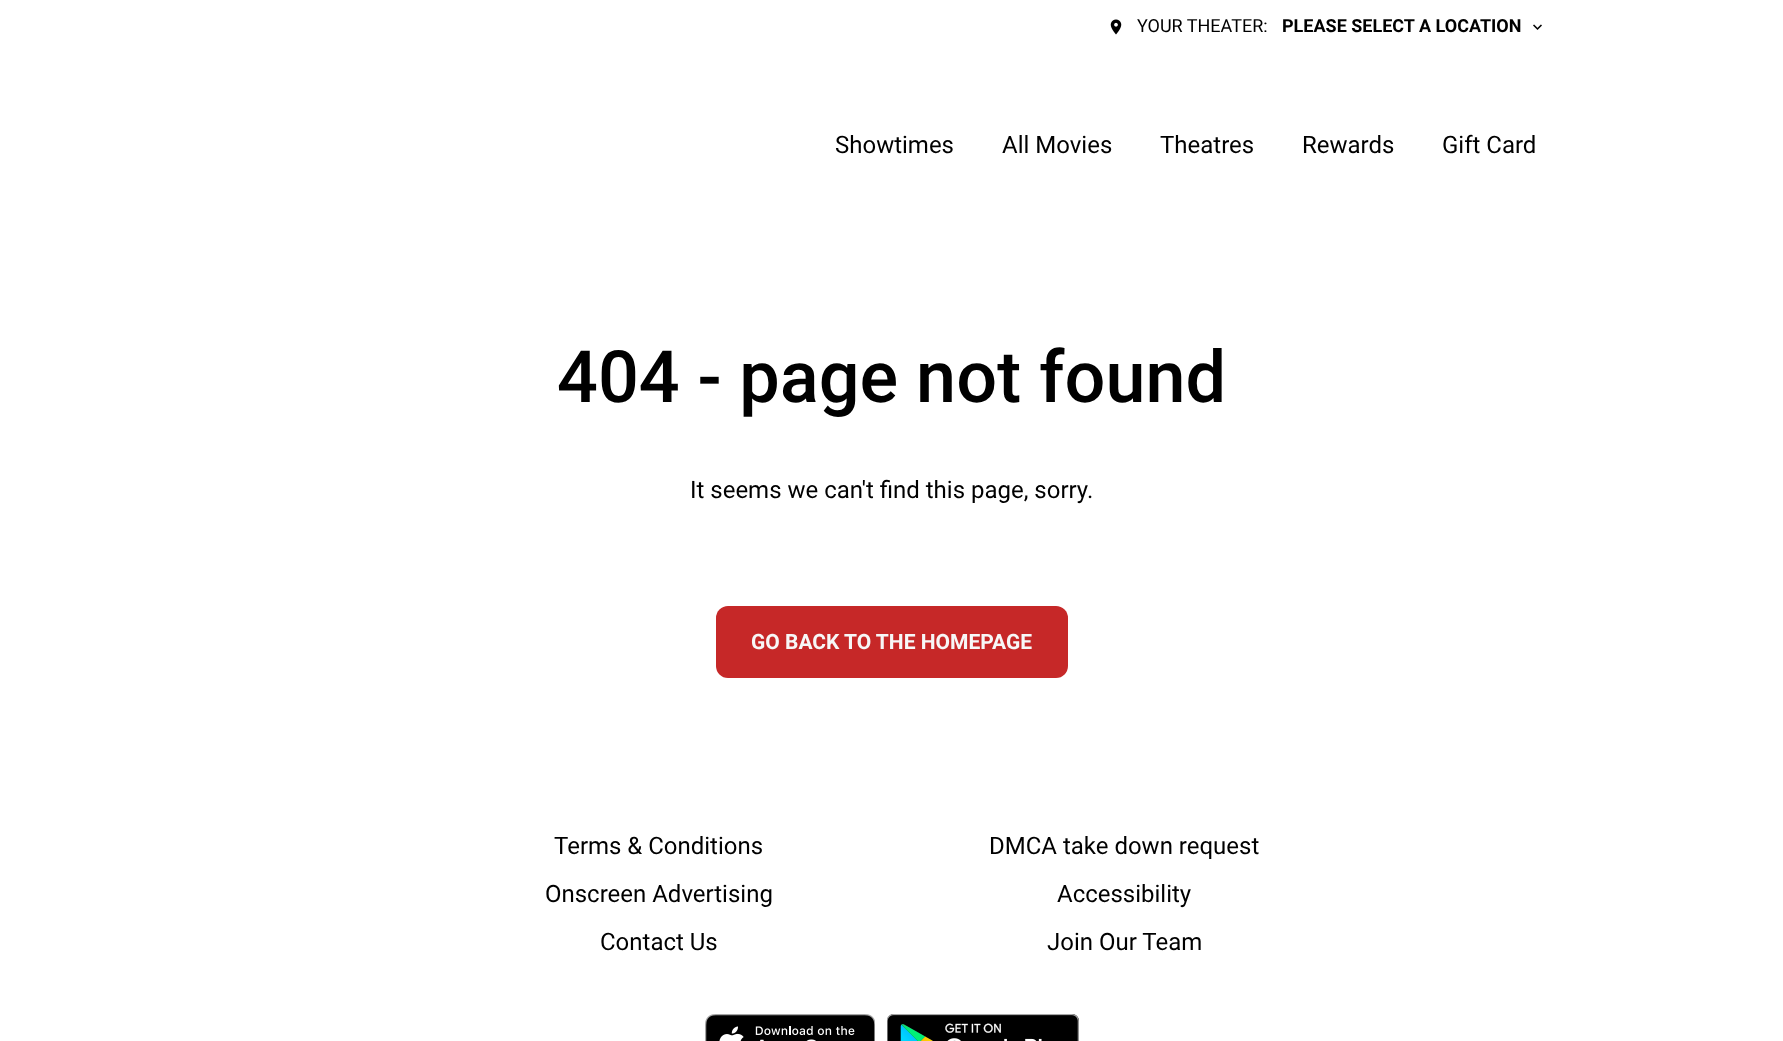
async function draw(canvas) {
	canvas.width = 1783;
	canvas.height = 1041;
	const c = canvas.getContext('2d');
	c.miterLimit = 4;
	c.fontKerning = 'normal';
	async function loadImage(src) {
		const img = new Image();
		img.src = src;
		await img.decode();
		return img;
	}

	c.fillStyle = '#fff';
	c.fillRect(0, 0, 1783, 1041);
	c.drawImage(await loadImage('img1.png'), 1110, 19, 12, 16);
	c.font = '18px Roboto';
	c.fillStyle = '#000';
	c.fillText('YOUR THEATER:', 1137, 32);
	c.font = 'bold 18px Roboto';
	c.fillText('PLEASE SELECT A LOCATION', 1282, 32);
	c.drawImage(await loadImage('img2.png'), 1533, 24, 9, 6);
	c.font = '24px Roboto';
	for (const [text, x, y] of [
		['Showtimes', 835, 153],
		['All Movies', 1002, 153],
		['Theatres', 1160, 153],
		['Rewards', 1302, 153],
		['Gift Card', 1442, 153],
	]) {
		c.fillText(text, x, y);
	}
	c.font = '500 72px Roboto';
	c.fillText('404 - page not found', 557, 402);
	c.font = '24px Roboto';
	c.fillText('It seems we can\'t find this page, sorry.', 690, 498);
	c.fillStyle = '#c62828';
	c.beginPath();
	c.roundRect(716, 606, 352, 72, 12);
	c.fill();
	c.font = 'bold 21px Roboto';
	c.fillStyle = '#f7f7f7';
	c.fillText('GO BACK TO THE HOMEPAGE', 751, 649);
	c.font = '24px Roboto';
	c.fillStyle = '#000';
	for (const [text, x, y] of [
		['Terms & Conditions', 554, 854],
		['Onscreen Advertising', 545, 902],
		['Contact Us', 600, 950],
		['DMCA take down request', 989, 854],
		['Accessibility', 1057, 902],
		['Join Our Team', 1047, 950],
	]) {
		c.fillText(text, x, y);
	}
	c.drawImage(await loadImage('img3.png'), 705, 1014, 170, 27);
	c.drawImage(await loadImage('img4.png'), 887, 1014, 192, 27);
}

draw(document.querySelector('canvas'));
